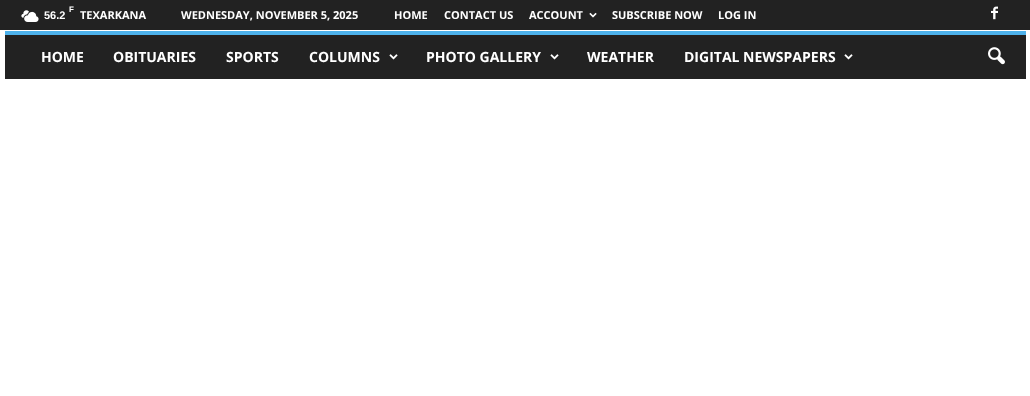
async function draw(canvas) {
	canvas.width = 1030;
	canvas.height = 396;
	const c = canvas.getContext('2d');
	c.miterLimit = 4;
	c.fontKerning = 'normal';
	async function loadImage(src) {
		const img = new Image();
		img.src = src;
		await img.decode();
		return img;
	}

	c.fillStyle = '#fff';
	c.fillRect(0, 0, 1030, 396);
	c.fillStyle = '#222';
	c.fillRect(0, 0, 1030, 30);
	c.drawImage(await loadImage('img1.png'), 21, 10, 18, 12);
	c.font = 'bold 8px Liberation Sans';
	c.fillStyle = '#fff';
	c.fillText('F', 69, 12);
	c.font = 'bold 11px Liberation Sans';
	c.fillText('56.2', 44, 19);
	c.font = 'bold 11px Open Sans';
	for (const [text, x, y] of [
		['TEXARKANA', 80, 19],
		['WEDNESDAY, NOVEMBER 5, 2025', 181, 19],
		['HOME', 394, 19],
		['CONTACT US', 444, 19],
		['ACCOUNT', 529, 19],
	]) {
		c.fillText(text, x, y);
	}
	c.drawImage(await loadImage('img2.png'), 589, 12, 8, 6);
	c.fillText('SUBSCRIBE NOW', 612, 19);
	c.fillText('LOG IN', 718, 19);
	c.drawImage(await loadImage('img3.png'), 991, 6, 7, 14);
	c.fillStyle = '#222';
	c.fillRect(5, 35, 1021, 44);
	c.fillStyle = '#4db2ec';
	c.fillRect(5, 31, 1021, 4);
	c.font = 'bold 14px Open Sans';
	c.fillStyle = '#fff';
	for (const [text, x, y] of [
		['HOME', 41, 62],
		['OBITUARIES', 113, 62],
		['SPORTS', 226, 62],
		['COLUMNS', 309, 62],
	]) {
		c.fillText(text, x, y);
	}
	c.drawImage(await loadImage('img4.png'), 389, 54, 9, 6);
	c.fillText('PHOTO GALLERY', 426, 62);
	c.drawImage(await loadImage('img4.png'), 550, 54, 9, 6);
	c.fillText('WEATHER', 587, 62);
	c.fillText('DIGITAL NEWSPAPERS', 684, 62);
	c.drawImage(await loadImage('img4.png'), 844, 54, 9, 6);
	c.drawImage(await loadImage('img5.png'), 988, 47, 17, 18);
}

draw(document.querySelector('canvas'));
